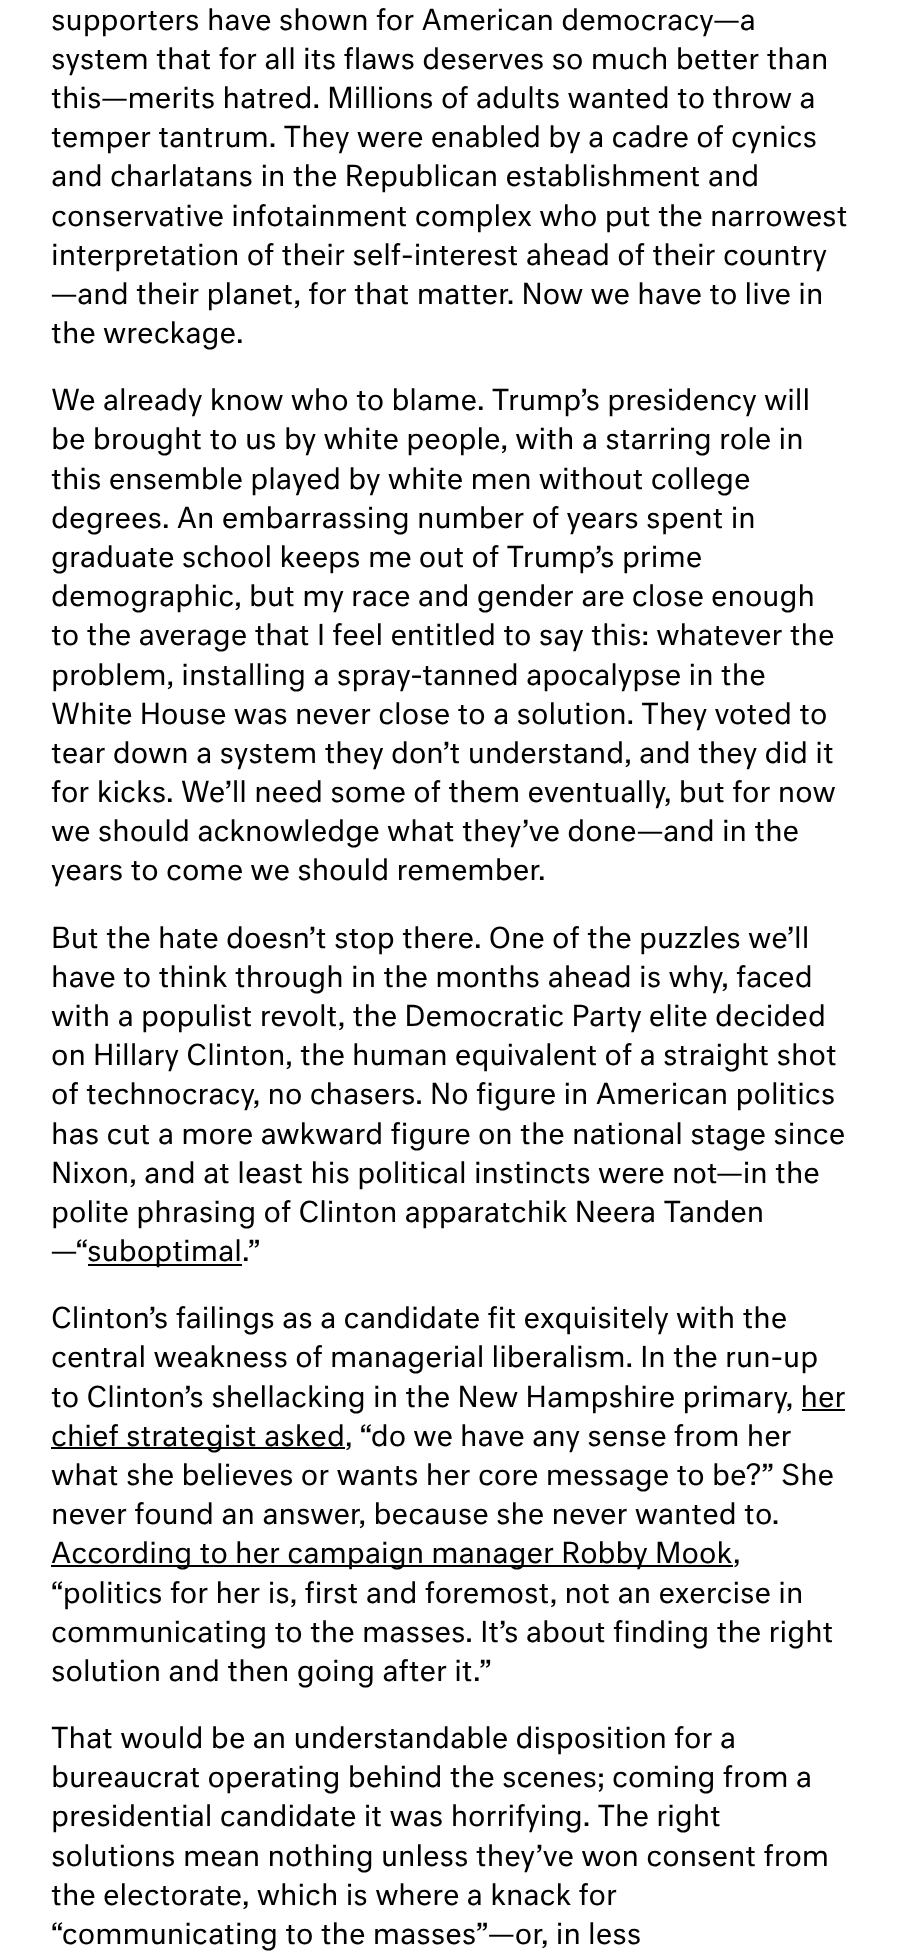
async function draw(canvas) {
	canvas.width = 901;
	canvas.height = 1956;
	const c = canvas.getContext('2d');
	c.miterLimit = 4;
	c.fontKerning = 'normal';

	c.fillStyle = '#fff';
	c.fillRect(0, 0, 901, 1956);
	c.font = '28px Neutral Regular';
	c.fillStyle = '#000';
	for (const [text, x, y] of [
		['supporters have shown for American democracy—a', 51, 30],
		['system that for all its flaws deserves so much better than', 51, 69],
		['this—merits hatred. Millions of adults wanted to throw a', 51, 108],
		['temper tantrum. They were enabled by a cadre of cynics', 51, 147],
		['and charlatans in the Republican establishment and', 51, 186],
		['conservative infotainment complex who put the narrowest', 51, 226],
		['interpretation of their self-interest ahead of their country', 51, 265],
		['—and their planet, for that matter. Now we have to live in', 51, 304],
		['the wreckage.', 51, 343],
		['We already know who to blame. Trump’s presidency will', 51, 410],
		['be brought to us by white people, with a starring role in', 51, 449],
		['this ensemble played by white men without college', 51, 489],
		['degrees. An embarrassing number of years spent in', 51, 528],
		['graduate school keeps me out of Trump’s prime', 51, 567],
		['demographic, but my race and gender are close enough', 51, 606],
		['to the average that I feel entitled to say this: whatever the', 51, 645],
		['problem, installing a spray-tanned apocalypse in the', 51, 685],
		['White House was never close to a solution. They voted to', 51, 724],
		['tear down a system they don’t understand, and they did it', 51, 763],
		['for kicks. We’ll need some of them eventually, but for now', 51, 802],
		['we should acknowledge what they’ve done—and in the', 51, 841],
		['years to come we should remember.', 51, 880],
		['But the hate doesn’t stop there. One of the puzzles we’ll', 51, 948],
		['have to think through in the months ahead is why, faced', 51, 987],
		['with a populist revolt, the Democratic Party elite decided', 51, 1026],
		['on Hillary Clinton, the human equivalent of a straight shot', 51, 1065],
		['of technocracy, no chasers. No figure in American politics', 51, 1104],
		['has cut a more awkward figure on the national stage since', 51, 1144],
		['Nixon, and at least his political instincts were not—in the', 51, 1183],
		['polite phrasing of Clinton apparatchik Neera Tanden', 51, 1222],
		['—“', 51, 1261],
	]) {
		c.fillText(text, x, y);
	}
	c.fillRect(88, 1264, 154, 2);
	for (const [text, x, y] of [
		['suboptimal.”', 87, 1261],
		['Clinton’s failings as a candidate fit exquisitely with the', 51, 1328],
		['central weakness of managerial liberalism. In the run-up', 51, 1367],
		['to Clinton’s shellacking in the New Hampshire primary, her', 51, 1407],
	]) {
		c.fillText(text, x, y);
	}
	c.fillRect(51, 1447, 294, 2);
	c.fillText('chief strategist asked, “do we have any sense from her', 51, 1446);
	c.fillRect(802, 1409, 43, 2);
	c.fillText('what she believes or wants her core message to be?” She', 51, 1485);
	c.fillText('never found an answer, because she never wanted to.', 51, 1524);
	c.fillRect(51, 1565, 682, 2);
	for (const [text, x, y] of [
		['According to her campaign manager Robby Mook', 51, 1563],
		[',', 733, 1563],
		['“politics for her is, first and foremost, not an exercise in', 51, 1603],
		['communicating to the masses. It’s about finding the right', 51, 1642],
		['solution and then going after it.”', 51, 1681],
		['That would be an understandable disposition for a', 51, 1748],
		['bureaucrat operating behind the scenes; coming from a', 51, 1787],
		['presidential candidate it was horrifying. The right', 51, 1826],
		['solutions mean nothing unless they’ve won consent from', 51, 1866],
		['the electorate, which is where a knack for', 51, 1905],
		['“communicating to the masses”—or, in less', 51, 1944],
	]) {
		c.fillText(text, x, y);
	}
}

draw(document.querySelector('canvas'));
